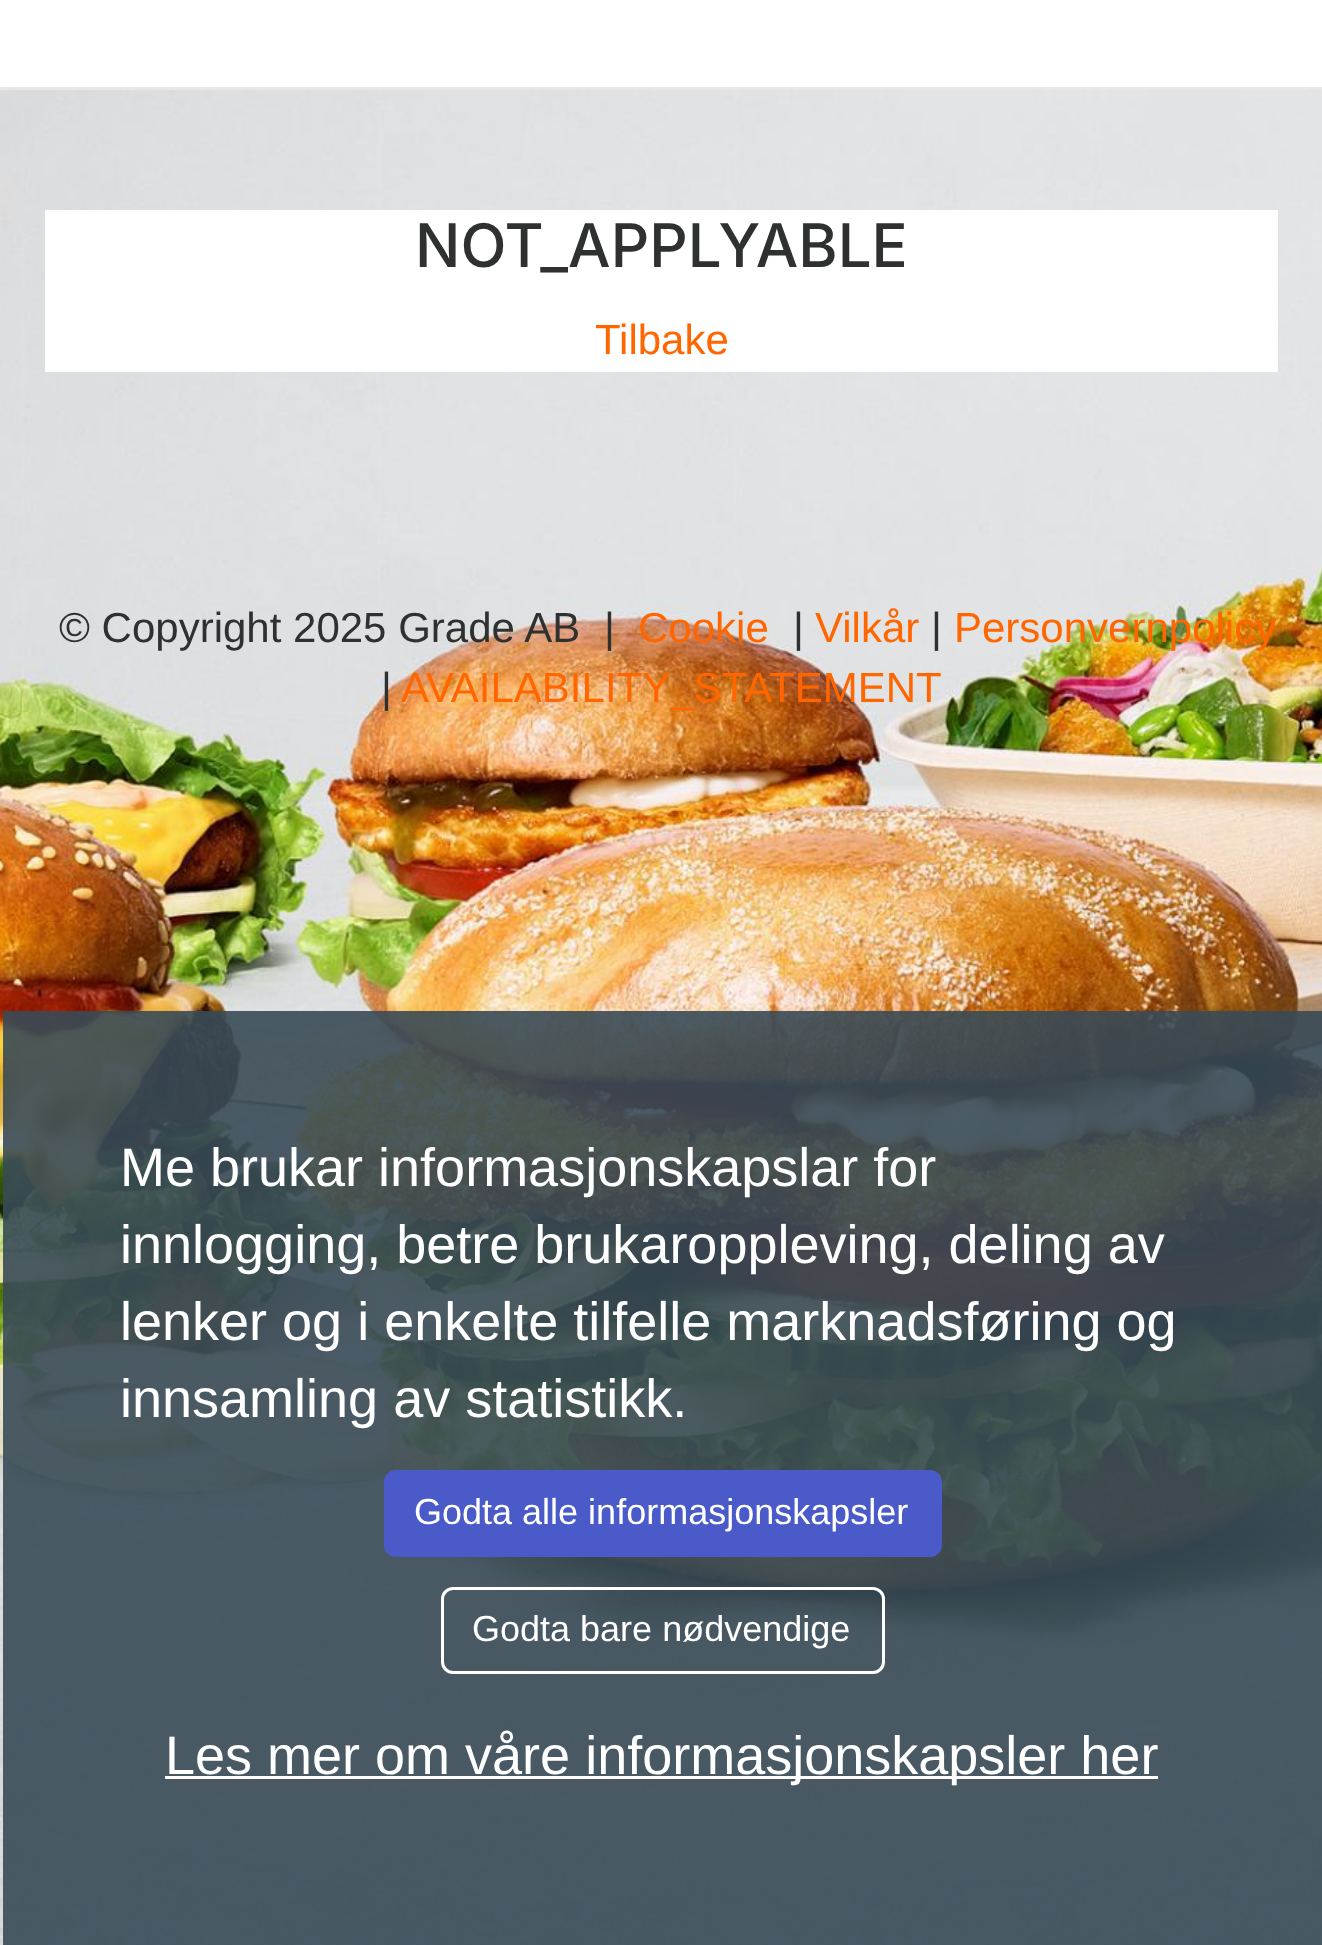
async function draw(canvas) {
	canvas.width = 1322;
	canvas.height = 1945;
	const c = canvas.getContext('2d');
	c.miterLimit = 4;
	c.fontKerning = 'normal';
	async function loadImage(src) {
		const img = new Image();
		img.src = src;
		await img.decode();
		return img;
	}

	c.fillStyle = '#fff';
	c.fillRect(0, 0, 1322, 1945);
	c.fillStyle = '#e7e7e7';
	c.fillRect(0, 87, 1322, 3);
	c.drawImage(await loadImage('img1.png'), 0, 90, 1322, 1855);
	c.fillStyle = '#fff';
	c.fillRect(45, 210, 1233, 162);
	c.font = '500 60px Inter';
	c.fillStyle = '#2f3030';
	c.fillText('NOT_APPLYABLE', 415, 267);
	c.font = '42px Liberation Sans';
	c.fillStyle = '#f60';
	c.fillText('Tilbake', 595, 354);
	c.fillStyle = '#2f3030';
	c.fillText('© Copyright 2025 Grade AB', 59, 642);
	c.fillText('|', 604, 642);
	c.fillStyle = '#f60';
	c.fillText('Cookie', 638, 642);
	c.fillStyle = '#2f3030';
	c.fillText('|', 793, 642);
	c.fillStyle = '#f60';
	c.fillText('Vilkår', 815, 642);
	c.fillStyle = '#2f3030';
	c.fillText('|', 931, 642);
	c.fillStyle = '#f60';
	c.fillText('Personvernpolicy', 954, 642);
	c.fillStyle = '#2f3030';
	c.fillText('|', 381, 702);
	c.fillStyle = '#f60';
	c.fillText('AVAILABILITY_STATEMENT', 401, 702);
	c.fillStyle = '#384a57e6';
	c.fillRect(3, 1011, 1319, 934);
	c.font = '54px Liberation Sans';
	c.fillStyle = '#fff';
	for (const [text, x, y] of [
		['Me brukar informasjonskapslar for', 120, 1186],
		['innlogging, betre brukaroppleving, deling av', 120, 1263],
		['lenker og i enkelte tilfelle marknadsføring og', 120, 1340],
		['innsamling av statistikk.', 120, 1417],
	]) {
		c.fillText(text, x, y);
	}
	c.fillStyle = '#4a5bc9';
	c.beginPath();
	c.roundRect(385.5, 1471.5, 555, 84, 10.5);
	c.fill();
	c.strokeStyle = '#4a5bc9';
	c.lineWidth = 3;
	c.stroke();
	c.font = '36px Liberation Sans';
	c.fillStyle = '#fff';
	c.fillText('Godta alle informasjonskapsler', 414, 1524);
	c.beginPath();
	c.roundRect(442.5, 1588.5, 441, 84, 10.5);
	c.strokeStyle = '#fff';
	c.stroke();
	c.fillText('Godta bare nødvendige', 472, 1641);
	c.fillRect(165, 1776, 993, 3);
	c.font = '54px Liberation Sans';
	c.fillText('Les mer om våre informasjonskapsler her', 165, 1774);
}

draw(document.querySelector('canvas'));
